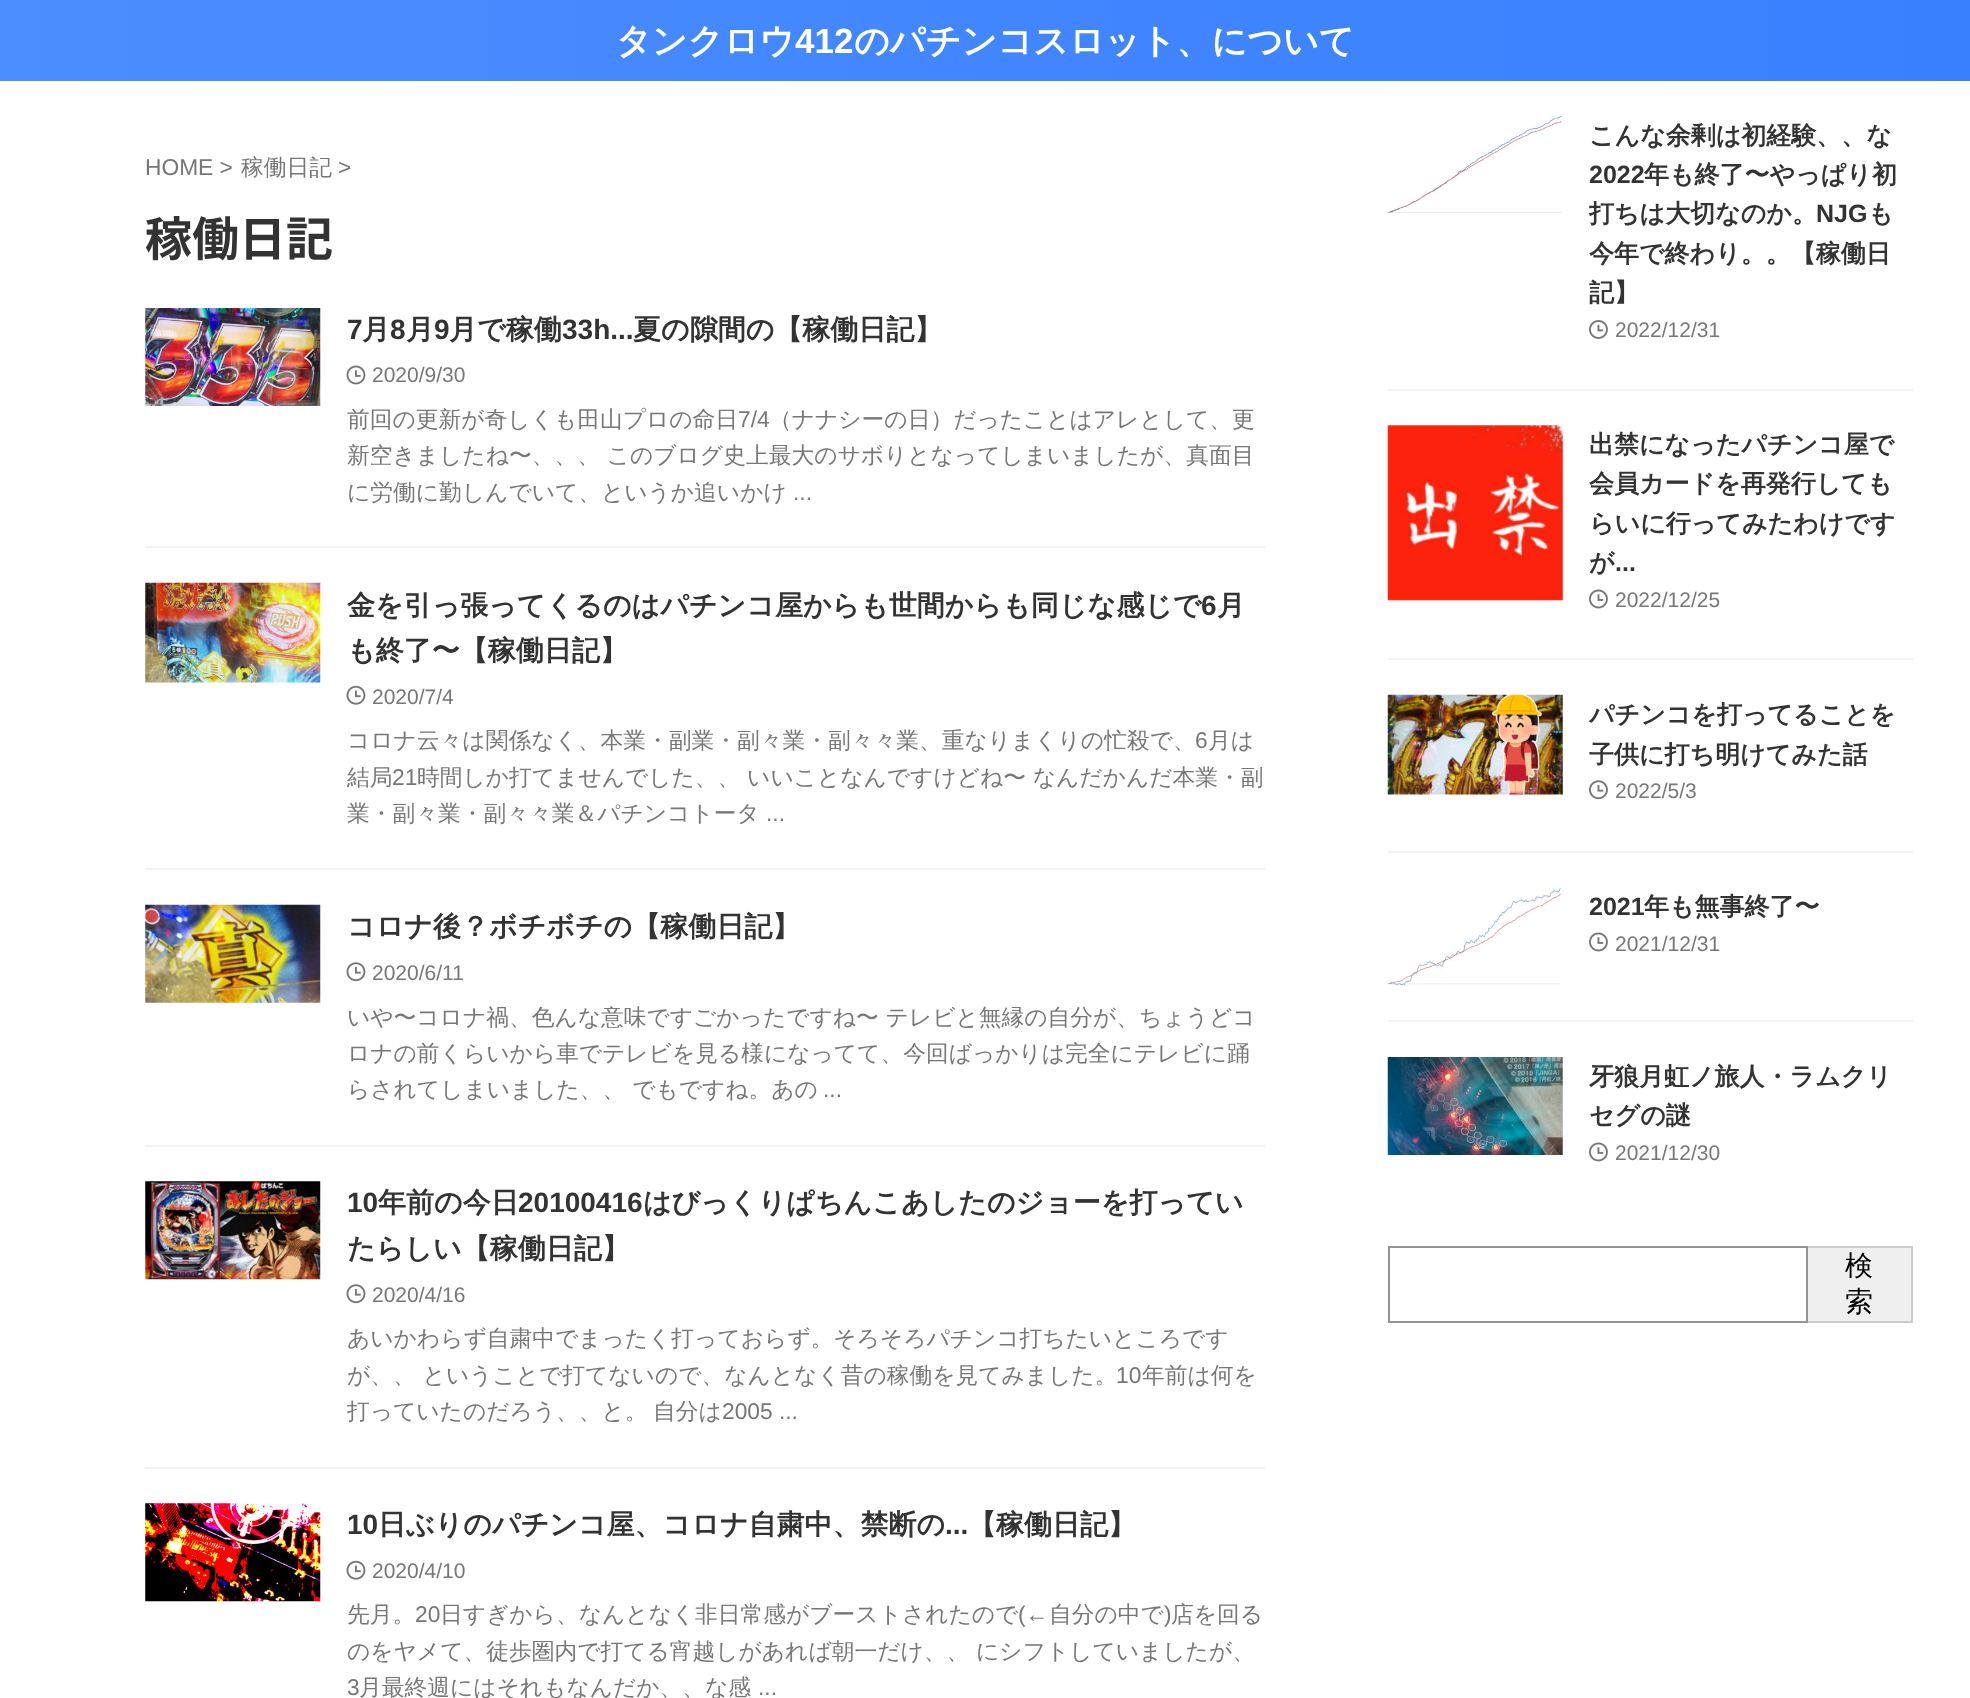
async function draw(canvas) {
	canvas.width = 1970;
	canvas.height = 1698;
	const c = canvas.getContext('2d');
	c.miterLimit = 4;
	c.fontKerning = 'normal';
	async function loadImage(src) {
		const img = new Image();
		img.src = src;
		await img.decode();
		return img;
	}
	let gradient;

	c.fillStyle = '#fff';
	c.fillRect(0, 0, 1970, 1698);
	gradient = c.createLinearGradient(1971, 40, 0, 40);
	gradient.addColorStop(0, '#3880ff');
	gradient.addColorStop(1, '#4c8dff');
	c.fillStyle = gradient;
	c.fillRect(0, 0, 1970, 81);
	c.font = 'bold 35px WenQuanYi Zen Hei';
	c.fillStyle = '#fff';
	c.fillText('タンクロウ', 616, 53);
	c.font = 'bold 35px Liberation Sans';
	c.fillText('412', 795, 53);
	c.font = 'bold 35px WenQuanYi Zen Hei';
	c.fillText('のパチンコスロット、について', 854, 53);
	c.font = '22.75px Liberation Sans';
	c.fillStyle = '#777';
	c.fillText('HOME >', 145, 175);
	c.font = '500 22.75px WenQuanYi Zen Hei';
	c.fillText('稼働日記', 241, 175);
	c.font = '22.75px Liberation Sans';
	c.fillText('>', 338, 175);
	c.font = 'bold 47px Noto Sans JP';
	c.fillStyle = '#333';
	c.fillText('稼働日記', 145, 256);
	c.fillStyle = '#f3f3f3';
	c.fillRect(145, 546, 1120, 2);
	c.drawImage(await loadImage('img1.png'), 145, 308, 176, 98);
	c.font = 'bold 28px Liberation Sans';
	c.fillStyle = '#333';
	c.fillText('7', 347, 339);
	c.font = 'bold 28px WenQuanYi Zen Hei';
	c.fillText('月', 362, 339);
	c.font = 'bold 28px Liberation Sans';
	c.fillText('8', 390, 339);
	c.font = 'bold 28px WenQuanYi Zen Hei';
	c.fillText('月', 406, 339);
	c.font = 'bold 28px Liberation Sans';
	c.fillText('9', 434, 339);
	c.font = 'bold 28px WenQuanYi Zen Hei';
	c.fillText('月で稼働', 449, 339);
	c.font = 'bold 28px Liberation Sans';
	c.fillText('33h...', 562, 339);
	c.font = 'bold 28px WenQuanYi Zen Hei';
	c.fillText('夏の隙間の【稼働日記】', 633, 339);
	c.drawImage(await loadImage('img2.png'), 346, 365, 20, 20);
	c.font = '21px Liberation Sans';
	c.fillStyle = '#777';
	c.fillText('2020/9/30', 372, 382);
	c.font = '500 22.75px WenQuanYi Zen Hei';
	c.fillText('前回の更新が奇しくも田山プロの命日', 347, 427);
	c.font = '22.75px Liberation Sans';
	c.fillText('7/4', 738, 427);
	c.font = '500 22.75px WenQuanYi Zen Hei';
	for (const [text, x, y] of [
		['（ナナシーの日）だったことはアレとして、更', 769, 427],
		['新空きましたね〜、、、 このブログ史上最大のサボりとなってしまいましたが、真面目', 347, 463],
		['に労働に勤しんでいて、というか追いかけ', 347, 500],
	]) {
		c.fillText(text, x, y);
	}
	c.font = '22.75px Liberation Sans';
	c.fillText('...', 793, 500);
	c.fillStyle = '#f3f3f3';
	c.fillRect(145, 868, 1120, 2);
	c.drawImage(await loadImage('img3.png'), 145, 582, 176, 101);
	c.font = 'bold 28px WenQuanYi Zen Hei';
	c.fillStyle = '#333';
	c.fillText('金を引っ張ってくるのはパチンコ屋からも世間からも同じな感じで', 347, 615);
	c.font = 'bold 28px Liberation Sans';
	c.fillText('6', 1201, 615);
	c.font = 'bold 28px WenQuanYi Zen Hei';
	c.fillText('月', 1217, 615);
	c.fillText('も終了〜【稼働日記】', 347, 660);
	c.drawImage(await loadImage('img4.png'), 346, 685, 20, 20);
	c.font = '21px Liberation Sans';
	c.fillStyle = '#777';
	c.fillText('2020/7/4', 372, 704);
	c.font = '500 22.75px WenQuanYi Zen Hei';
	c.fillText('コロナ云々は関係なく、本業・副業・副々業・副々々業、重なりまくりの忙殺で、', 347, 748);
	c.font = '22.75px Liberation Sans';
	c.fillText('6', 1195, 748);
	c.font = '500 22.75px WenQuanYi Zen Hei';
	c.fillText('月は', 1208, 748);
	c.fillText('結局', 347, 785);
	c.font = '22.75px Liberation Sans';
	c.fillText('21', 392, 785);
	c.font = '500 22.75px WenQuanYi Zen Hei';
	c.fillText('時間しか打てませんでした、、 いいことなんですけどね〜 なんだかんだ本業・副', 417, 785);
	c.fillText('業・副々業・副々々業＆パチンコトータ', 347, 821);
	c.font = '22.75px Liberation Sans';
	c.fillText('...', 766, 821);
	c.fillStyle = '#f3f3f3';
	c.fillRect(145, 1145, 1120, 2);
	c.drawImage(await loadImage('img5.png'), 145, 904, 176, 99);
	c.font = 'bold 28px WenQuanYi Zen Hei';
	c.fillStyle = '#333';
	c.fillText('コロナ後？ボチボチの【稼働日記】', 347, 936);
	c.drawImage(await loadImage('img6.png'), 346, 962, 20, 20);
	c.font = '21px Liberation Sans';
	c.fillStyle = '#777';
	c.fillText('2020/6/11', 372, 980);
	c.font = '500 22.75px WenQuanYi Zen Hei';
	for (const [text, x, y] of [
		['いや〜コロナ禍、色んな意味ですごかったですね〜 テレビと無縁の自分が、ちょうどコ', 347, 1025],
		['ロナの前くらいから車でテレビを見る様になってて、今回ばっかりは完全にテレビに踊', 347, 1061],
		['らされてしまいました、、 でもですね。あの', 347, 1097],
	]) {
		c.fillText(text, x, y);
	}
	c.font = '22.75px Liberation Sans';
	c.fillText('...', 823, 1097);
	c.fillStyle = '#f3f3f3';
	c.fillRect(145, 1467, 1120, 2);
	c.drawImage(await loadImage('img7.png'), 145, 1181, 176, 99);
	c.font = 'bold 28px Liberation Sans';
	c.fillStyle = '#333';
	c.fillText('10', 347, 1212);
	c.font = 'bold 28px WenQuanYi Zen Hei';
	c.fillText('年前の今日', 378, 1212);
	c.font = 'bold 28px Liberation Sans';
	c.fillText('20100416', 518, 1212);
	c.font = 'bold 28px WenQuanYi Zen Hei';
	c.fillText('はびっくりぱちんこあしたのジョーを打ってい', 643, 1212);
	c.fillText('たらしい【稼働日記】', 347, 1258);
	c.drawImage(await loadImage('img6.png'), 346, 1284, 20, 20);
	c.font = '21px Liberation Sans';
	c.fillStyle = '#777';
	c.fillText('2020/4/16', 372, 1302);
	c.font = '500 22.75px WenQuanYi Zen Hei';
	c.fillText('あいかわらず自粛中でまったく打っておらず。そろそろパチンコ打ちたいところです', 347, 1346);
	c.fillText('が、、 ということで打てないので、なんとなく昔の稼働を見てみました。', 347, 1383);
	c.font = '22.75px Liberation Sans';
	c.fillText('10', 1116, 1383);
	c.font = '500 22.75px WenQuanYi Zen Hei';
	for (const [text, x, y] of [
		['年前は何を', 1142, 1383],
		['打っていたのだろう、、と。', 347, 1419],
		['自分は', 653, 1419],
	]) {
		c.fillText(text, x, y);
	}
	c.font = '22.75px Liberation Sans';
	c.fillText('2005 ...', 722, 1419);
	c.drawImage(await loadImage('img8.png'), 145, 1503, 176, 99);
	c.font = 'bold 28px Liberation Sans';
	c.fillStyle = '#333';
	c.fillText('10', 347, 1534);
	c.font = 'bold 28px WenQuanYi Zen Hei';
	c.fillText('日ぶりのパチンコ屋、コロナ自粛中、禁断の', 378, 1534);
	c.font = 'bold 28px Liberation Sans';
	c.fillText('...', 945, 1534);
	c.font = 'bold 28px WenQuanYi Zen Hei';
	c.fillText('【稼働日記】', 968, 1534);
	c.drawImage(await loadImage('img4.png'), 346, 1560, 20, 20);
	c.font = '21px Liberation Sans';
	c.fillStyle = '#777';
	c.fillText('2020/4/10', 372, 1578);
	c.font = '500 22.75px WenQuanYi Zen Hei';
	c.fillText('先月。', 347, 1622);
	c.font = '22.75px Liberation Sans';
	c.fillText('20', 415, 1622);
	c.font = '500 22.75px WenQuanYi Zen Hei';
	c.fillText('日すぎから、なんとなく非日常感がブーストされたので', 440, 1622);
	c.font = '22.75px Liberation Sans';
	c.fillText('(←', 1018, 1622);
	c.font = '500 22.75px WenQuanYi Zen Hei';
	c.fillText('自分の中で', 1049, 1622);
	c.font = '22.75px Liberation Sans';
	c.fillText(')', 1164, 1622);
	c.font = '500 22.75px WenQuanYi Zen Hei';
	c.fillText('店を回る', 1171, 1622);
	c.fillText('のをヤメて、徒歩圏内で打てる宵越しがあれば朝一だけ、、 にシフトしていましたが、', 347, 1659);
	c.font = '22.75px Liberation Sans';
	c.fillText('3', 347, 1695);
	c.font = '500 22.75px WenQuanYi Zen Hei';
	c.fillText('月最終週にはそれもなんだか、、な感', 359, 1695);
	c.font = '22.75px Liberation Sans';
	c.fillText('...', 758, 1695);
	c.fillStyle = '#f3f3f3';
	c.fillRect(1388, 389, 525, 2);
	c.drawImage(await loadImage('img9.png'), 1387, 115, 176, 98);
	c.font = 'bold 25px WenQuanYi Zen Hei';
	c.fillStyle = '#333';
	c.fillText('こんな余剰は初経験、、な', 1589, 144);
	c.font = 'bold 25px Liberation Sans';
	c.fillText('2022', 1589, 183);
	c.font = 'bold 25px WenQuanYi Zen Hei';
	c.fillText('年も終了〜やっぱり初', 1644, 183);
	c.fillText('打ちは大切なのか。', 1589, 222);
	c.font = 'bold 25px Liberation Sans';
	c.fillText('NJG', 1816, 222);
	c.font = 'bold 25px WenQuanYi Zen Hei';
	for (const [text, x, y] of [
		['も', 1868, 222],
		['今年で終わり。。【稼働日', 1589, 262],
		['記】', 1589, 301],
	]) {
		c.fillText(text, x, y);
	}
	c.drawImage(await loadImage('img10.png'), 1589, 320, 19, 19);
	c.font = '21px Liberation Sans';
	c.fillStyle = '#777';
	c.fillText('2022/12/31', 1615, 337);
	c.fillStyle = '#f3f3f3';
	c.fillRect(1388, 658, 525, 2);
	c.drawImage(await loadImage('img11.png'), 1387, 425, 176, 176);
	c.font = 'bold 25px WenQuanYi Zen Hei';
	c.fillStyle = '#333';
	for (const [text, x, y] of [
		['出禁になったパチンコ屋で', 1589, 453],
		['会員カードを再発行しても', 1589, 492],
		['らいに行ってみたわけです', 1589, 532],
		['が', 1589, 571],
	]) {
		c.fillText(text, x, y);
	}
	c.font = 'bold 25px Liberation Sans';
	c.fillText('...', 1615, 571);
	c.drawImage(await loadImage('img12.png'), 1589, 589, 19, 20);
	c.font = '21px Liberation Sans';
	c.fillStyle = '#777';
	c.fillText('2022/12/25', 1615, 607);
	c.fillStyle = '#f3f3f3';
	c.fillRect(1388, 851, 525, 2);
	c.drawImage(await loadImage('img13.png'), 1387, 694, 176, 101);
	c.font = 'bold 25px WenQuanYi Zen Hei';
	c.fillStyle = '#333';
	c.fillText('パチンコを打ってることを', 1589, 723);
	c.fillText('子供に打ち明けてみた話', 1589, 763);
	c.drawImage(await loadImage('img14.png'), 1589, 780, 19, 20);
	c.font = '21px Liberation Sans';
	c.fillStyle = '#777';
	c.fillText('2022/5/3', 1615, 798);
	c.fillStyle = '#f3f3f3';
	c.fillRect(1388, 1020, 525, 2);
	c.drawImage(await loadImage('img15.png'), 1387, 887, 175, 99);
	c.font = 'bold 25px Liberation Sans';
	c.fillStyle = '#333';
	c.fillText('2021', 1589, 915);
	c.font = 'bold 25px WenQuanYi Zen Hei';
	c.fillText('年も無事終了〜', 1644, 915);
	c.drawImage(await loadImage('img12.png'), 1589, 932, 19, 20);
	c.font = '21px Liberation Sans';
	c.fillStyle = '#777';
	c.fillText('2021/12/31', 1615, 951);
	c.drawImage(await loadImage('img16.png'), 1387, 1057, 176, 98);
	c.font = 'bold 25px WenQuanYi Zen Hei';
	c.fillStyle = '#333';
	c.fillText('牙狼月虹ノ旅人・ラムクリ', 1589, 1085);
	c.fillText('セグの謎', 1589, 1124);
	c.drawImage(await loadImage('img12.png'), 1589, 1142, 19, 20);
	c.font = '21px Liberation Sans';
	c.fillStyle = '#777';
	c.fillText('2021/12/30', 1615, 1160);
	c.strokeStyle = '#949494';
	c.lineWidth = 2;
	c.strokeRect(1389, 1247, 418, 75);
	for (const [x, y, w, h, color] of [
		[1808, 1248, 103, 73, '#efefef'],
		[1808, 1246, 105, 2, '#ccc'],
		[1911, 1246, 2, 77, '#ccc'],
		[1808, 1321, 105, 2, '#ccc'],
	]) {
		c.fillStyle = color;
		c.fillRect(x, y, w, h);
	}
	c.font = '500 28px WenQuanYi Zen Hei';
	c.fillStyle = '#000';
	c.fillText('検', 1845, 1275);
	c.fillText('索', 1845, 1311);
}

draw(document.querySelector('canvas'));
